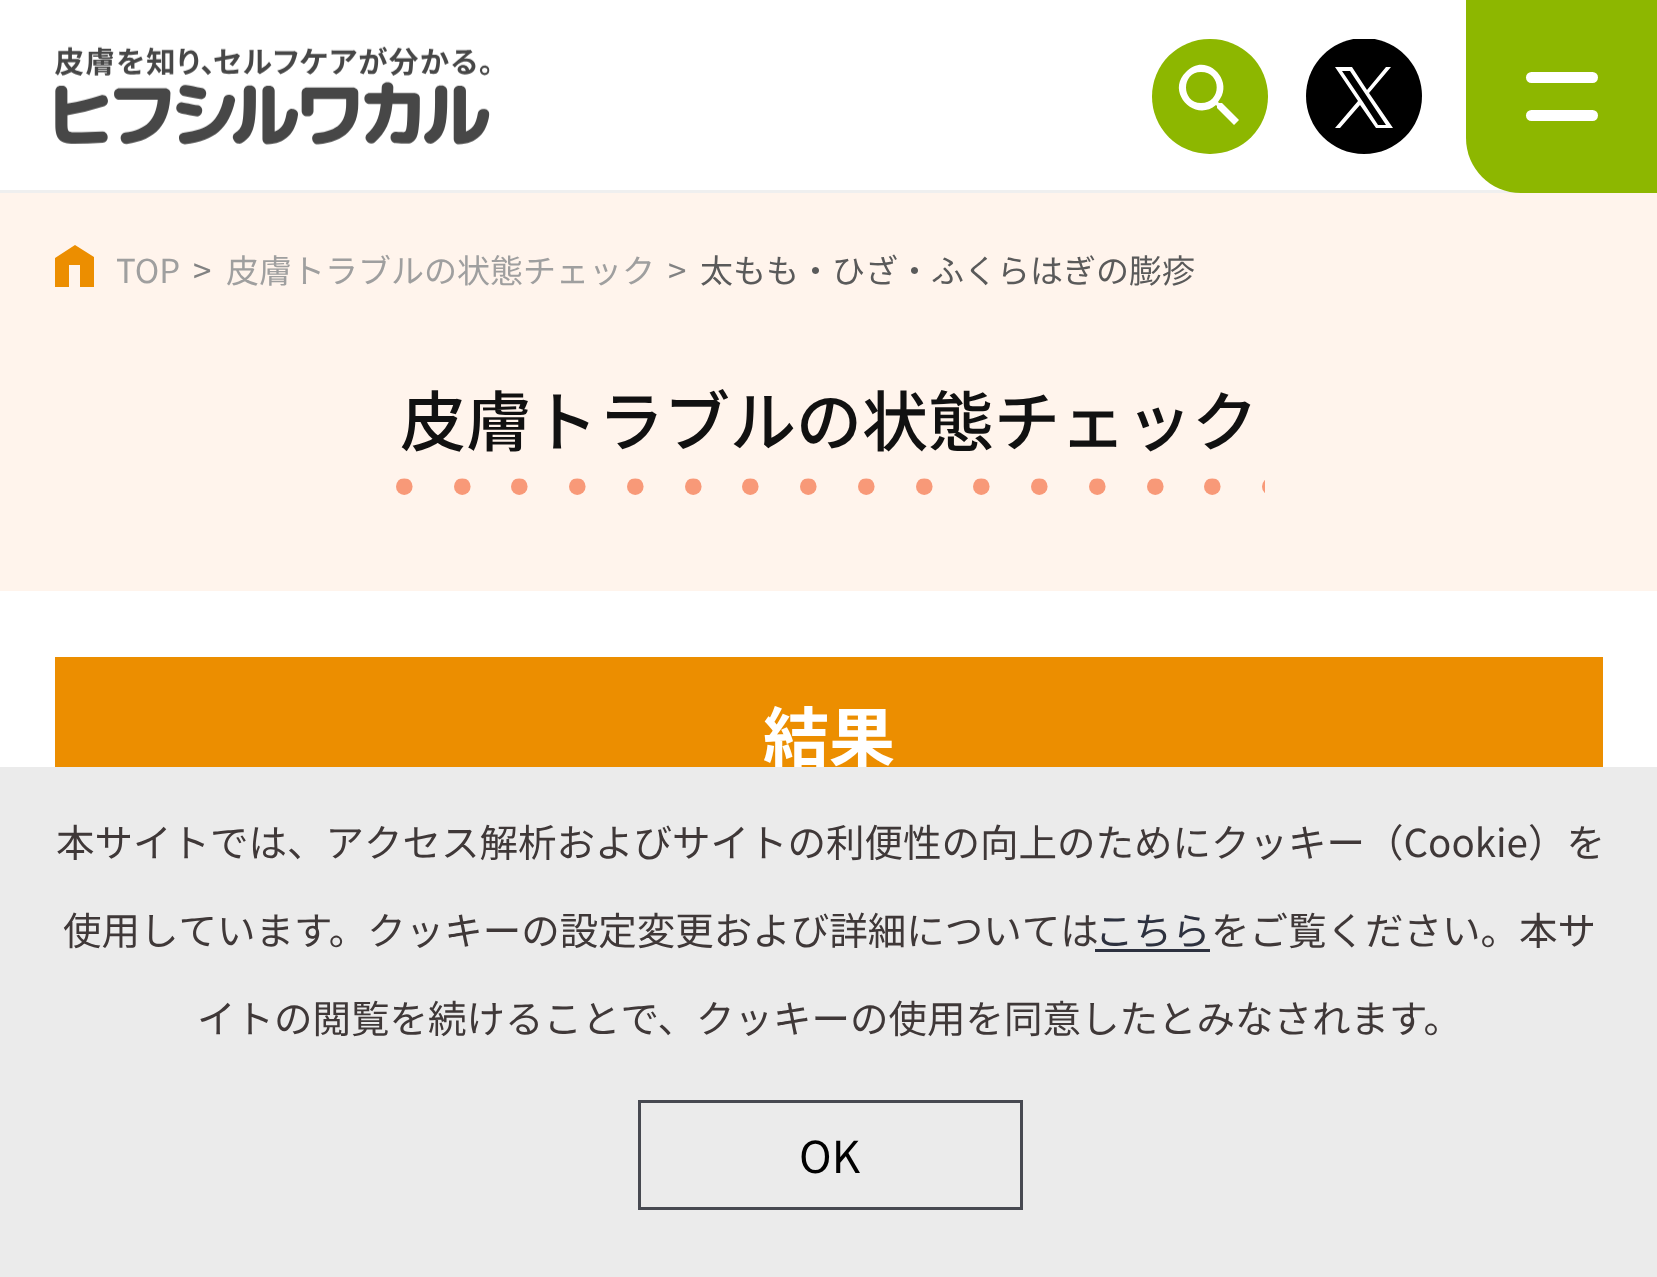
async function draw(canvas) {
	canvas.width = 1657;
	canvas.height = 1277;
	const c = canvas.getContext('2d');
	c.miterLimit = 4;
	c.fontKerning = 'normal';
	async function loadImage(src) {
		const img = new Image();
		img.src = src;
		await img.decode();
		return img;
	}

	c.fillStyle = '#fff';
	c.fillRect(0, 0, 1657, 1277);
	c.fillStyle = '#efefef';
	c.fillRect(0, 190, 1521, 3);
	c.drawImage(await loadImage('img1.png'), 55, 46, 435, 99);
	c.fillStyle = '#8db700';
	c.beginPath();
	c.roundRect(1152, 39, 116, 115, 57.5);
	c.fill();
	c.fillStyle = '#fff';
	c.beginPath();
	c.moveTo(1222, 103);
	c.lineTo(1219, 103);
	c.lineTo(1218, 102);
	c.bezierCurveTo(1236, 81, 1206, 51, 1186, 72);
	c.bezierCurveTo(1165, 92, 1195, 123, 1216, 105);
	c.lineTo(1217, 106);
	c.lineTo(1217, 108);
	c.lineTo(1234, 125);
	c.lineTo(1239, 120);
	c.closePath();
	c.moveTo(1201, 103);
	c.bezierCurveTo(1181, 103, 1181, 72, 1201, 72);
	c.bezierCurveTo(1222, 72, 1222, 103, 1201, 103);
	c.closePath();
	c.fill();
	c.save();
	c.beginPath();
	c.rect(1306, 39, 116, 115);
	c.clip();
	c.fillStyle = '#000';
	c.beginPath();
	c.moveTo(1364, 154);
	c.bezierCurveTo(1396, 154, 1422, 128, 1422, 96);
	c.bezierCurveTo(1422, 64, 1396, 38, 1364, 38);
	c.bezierCurveTo(1332, 38, 1306, 64, 1306, 96);
	c.bezierCurveTo(1306, 128, 1332, 154, 1364, 154);
	c.closePath();
	c.fill();
	c.restore();
	c.beginPath();
	c.moveTo(1369, 93);
	c.lineTo(1391, 67);
	c.lineTo(1386, 67);
	c.lineTo(1367, 90);
	c.lineTo(1352, 67);
	c.lineTo(1335, 67);
	c.lineTo(1358, 101);
	c.lineTo(1335, 128);
	c.lineTo(1340, 128);
	c.lineTo(1360, 105);
	c.lineTo(1376, 128);
	c.lineTo(1393, 128);
	c.closePath();
	c.moveTo(1363, 102);
	c.lineTo(1342, 71);
	c.lineTo(1350, 71);
	c.lineTo(1386, 125);
	c.lineTo(1378, 125);
	c.closePath();
	c.fill();
	c.fillStyle = '#8db700';
	c.beginPath();
	c.moveTo(1466, 0);
	c.lineTo(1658, 0);
	c.lineTo(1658, 193);
	c.lineTo(1521, 193);
	c.bezierCurveTo(1490.5, 193, 1466, 168.5, 1466, 138);
	c.closePath();
	c.fill();
	c.fillStyle = '#fff';
	c.beginPath();
	c.roundRect(1526, 72, 72, 11, 5.5);
	c.fill();
	c.beginPath();
	c.roundRect(1526, 110, 72, 11, 5.5);
	c.fill();
	c.fillStyle = '#fff4ec';
	c.fillRect(0, 193, 1657, 398);
	c.fillStyle = '#ec8e00';
	c.beginPath();
	c.moveTo(75, 245);
	c.lineTo(55, 258);
	c.lineTo(55, 287);
	c.lineTo(69, 287);
	c.lineTo(69, 265);
	c.lineTo(80, 265);
	c.lineTo(80, 287);
	c.lineTo(94, 287);
	c.lineTo(94, 257);
	c.closePath();
	c.fill();
	c.font = '33px Noto Sans JP';
	c.fillStyle = '#9f9f9f';
	c.fillText('TOP', 116, 283);
	c.fillStyle = '#828282';
	c.fillText('>', 193, 283);
	c.fillStyle = '#9f9f9f';
	c.fillText('皮膚トラブルの状態チェック', 226, 283);
	c.fillStyle = '#828282';
	c.fillText('>', 668, 283);
	c.fillStyle = '#5a5a5a';
	c.fillText('太もも・ひざ・ふくらはぎの膨疹', 700, 283);
	c.drawImage(await loadImage('img2.png'), 396, 478, 869, 17);
	c.font = '500 66px Noto Sans JP';
	c.fillStyle = '#111';
	c.fillText('皮膚トラブルの状態チェック', 400, 446);
	c.fillStyle = '#ec8e00';
	c.fillRect(55, 657, 1548, 110);
	c.font = 'bold 66px Noto Sans JP';
	c.fillStyle = '#fff';
	c.fillText('結果', 763, 762);
	c.fillStyle = '#ebebeb';
	c.fillRect(0, 767, 1657, 510);
	c.font = '38.5px Noto Sans JP';
	c.fillStyle = '#3f3838';
	c.fillText('本サイトでは、アクセス解析およびサイトの利便性の向上のためにクッキー（Cookie）を', 56, 857);
	c.fillText('使用しています。クッキーの設定変更および詳細については', 63, 945);
	c.fillStyle = '#2d313f';
	c.fillText('こちら', 1095, 945);
	c.fillRect(1095, 949, 115, 3);
	c.fillStyle = '#3f3838';
	c.fillText('をご覧ください。本サ', 1211, 945);
	c.fillText('イトの閲覧を続けることで、クッキーの使用を同意したとみなされます。', 197, 1033);
	c.strokeStyle = '#474951';
	c.lineWidth = 3;
	c.strokeRect(639.5, 1101.5, 382, 107);
	c.font = '44px Noto Sans JP';
	c.fillStyle = '#000';
	c.fillText('OK', 799, 1173);
}

draw(document.querySelector('canvas'));
